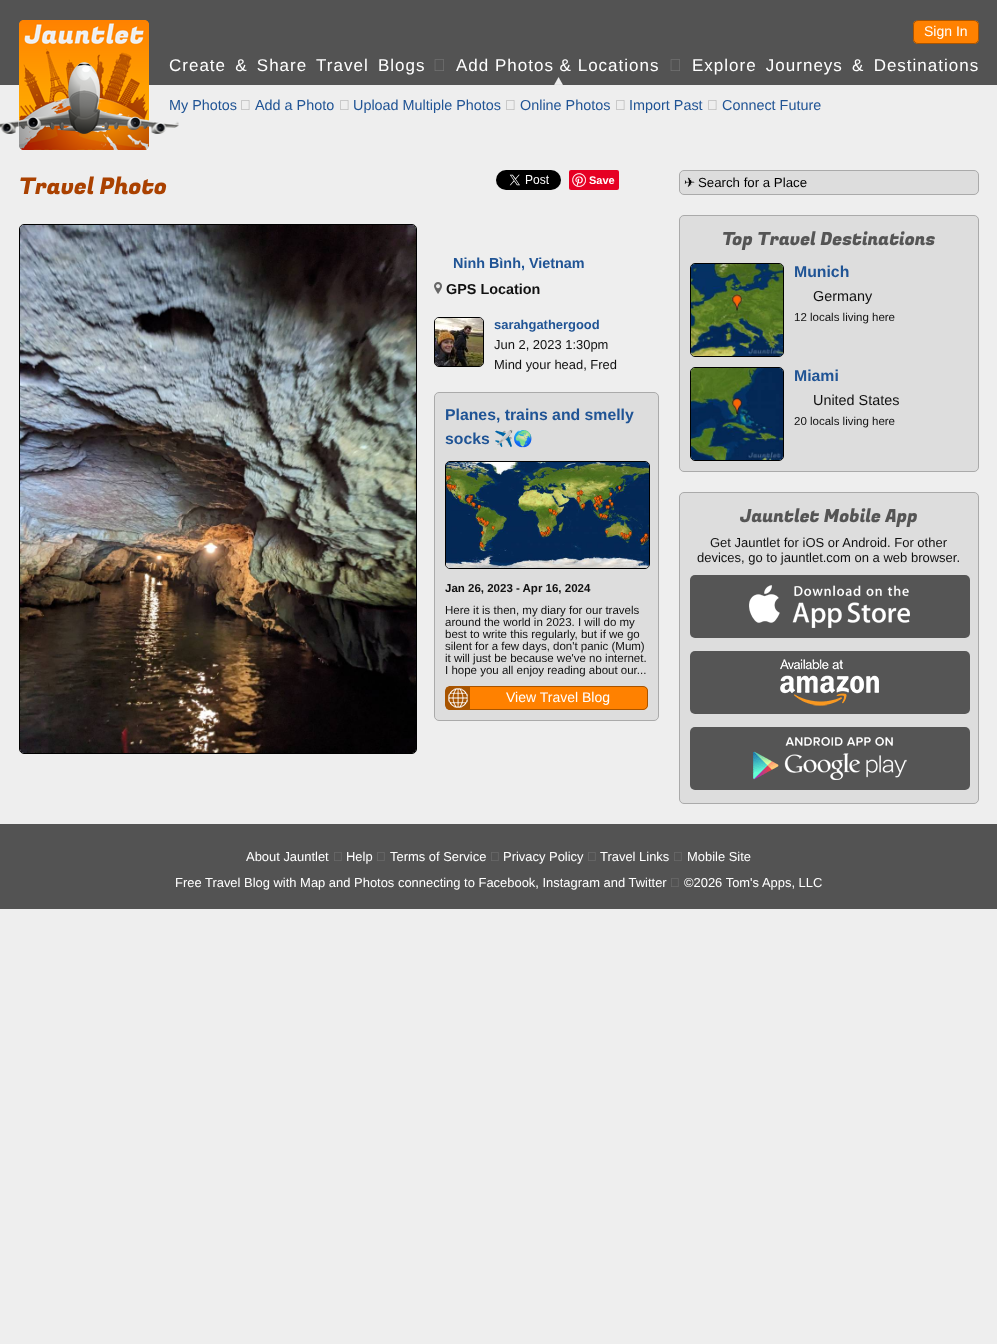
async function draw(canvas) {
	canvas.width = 997;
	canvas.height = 1344;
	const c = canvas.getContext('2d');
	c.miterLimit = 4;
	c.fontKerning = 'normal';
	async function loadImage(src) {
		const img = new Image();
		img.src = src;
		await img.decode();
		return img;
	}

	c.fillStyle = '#eee';
	c.fillRect(0, 0, 997, 1344);
	c.fillStyle = '#535353';
	c.fillRect(0, 0, 997, 85);
	c.drawImage(await loadImage('img1.png'), 19, 20, 130, 65);
	c.drawImage(await loadImage('img2.png'), 913, 20, 66, 24);
	c.beginPath();
	c.roundRect(913.5, 20.5, 65, 23, 4.5);
	c.strokeStyle = '#a85400';
	c.stroke();
	c.font = '14px Liberation Sans';
	c.fillStyle = '#fff';
	c.fillText('Sign In', 924, 36);
	c.letterSpacing = '1px';
	c.wordSpacing = '3.5px';
	c.font = '17px Liberation Sans';
	c.fillText('Create & Share Travel Blogs', 169, 71);
	c.drawImage(await loadImage('img3.png'), 434, 59, 10, 12);
	c.drawImage(await loadImage('img4.png'), 554, 77, 9, 8);
	c.wordSpacing = '0px';
	c.fillText('Add Photos & Locations', 456, 71);
	c.drawImage(await loadImage('img3.png'), 670, 59, 10, 12);
	c.wordSpacing = '3.5px';
	c.fillText('Explore Journeys & Destinations', 692, 71);
	c.drawImage(await loadImage('img5.png'), 0, 120, 179, 14);
	c.drawImage(await loadImage('img6.png'), 19, 85, 130, 65);
	c.letterSpacing = '0px';
	c.wordSpacing = '0px';
	c.font = '14.4px Liberation Sans';
	c.fillStyle = '#205495';
	c.fillText('My Photos', 169, 110);
	c.drawImage(await loadImage('img7.png'), 241, 100, 9, 10);
	c.fillText('Add a Photo', 255, 110);
	c.drawImage(await loadImage('img7.png'), 340, 100, 9, 10);
	c.fillText('Upload Multiple Photos', 353, 110);
	c.drawImage(await loadImage('img7.png'), 506, 100, 9, 10);
	c.fillText('Online Photos', 520, 110);
	c.drawImage(await loadImage('img7.png'), 616, 100, 9, 10);
	c.fillText('Import Past', 629, 110);
	c.drawImage(await loadImage('img7.png'), 708, 100, 9, 10);
	c.fillText('Connect Future', 722, 110);
	c.font = '23px Fugaz One';
	c.fillStyle = '#aa4100';
	c.fillText('Travel Photo', 19, 194);
	c.drawImage(await loadImage('img8.png'), 496, 170, 65, 20);
	c.fillStyle = '#e60023';
	c.beginPath();
	c.roundRect(569, 170, 50, 20, 2);
	c.fill();
	c.drawImage(await loadImage('img9.png'), 572, 173, 14, 14);
	c.font = 'bold 11px Liberation Sans';
	c.fillStyle = '#fff';
	c.fillText('Save', 589, 184);
	c.beginPath();
	c.roundRect(19.5, 224.5, 397, 529, 4.5);
	c.strokeStyle = '#000';
	c.stroke();
	c.drawImage(await loadImage('img10.png'), 20, 225, 396, 528);
	c.font = 'bold 14.4px Liberation Sans';
	c.fillStyle = '#205495';
	c.fillText('Ninh Bình, Vietnam', 453, 268);
	c.drawImage(await loadImage('img11.png'), 434, 282, 8, 12);
	c.fillStyle = '#111';
	c.fillText('GPS Location', 446, 294);
	c.beginPath();
	c.roundRect(434.5, 317.5, 49, 49, 4.5);
	c.stroke();
	c.drawImage(await loadImage('img12.png'), 435, 318, 48, 48);
	c.font = 'bold 12.95px Liberation Sans';
	c.fillStyle = '#205495';
	c.fillText('sarahgathergood', 494, 329);
	c.font = '12.95px Liberation Sans';
	c.fillStyle = '#111';
	c.fillText('Jun 2, 2023 1:30pm', 494, 349);
	c.fillText('Mind your head, Fred', 494, 369);
	c.fillStyle = '#ddd';
	c.beginPath();
	c.roundRect(434.5, 392.5, 224, 328, 4.5);
	c.fill();
	c.strokeStyle = '#aaa';
	c.stroke();
	c.font = 'bold 15.8px Liberation Sans';
	c.fillStyle = '#205495';
	c.fillText('Planes, trains and smelly', 445, 420);
	c.fillText('socks', 445, 444);
	c.font = 'bold 15.8px Noto Color Emoji';
	c.fillText('✈️🌍', 494, 444);
	c.beginPath();
	c.roundRect(445.5, 461.5, 204, 107, 4.5);
	c.strokeStyle = '#000';
	c.stroke();
	c.drawImage(await loadImage('img13.png'), 446, 462, 203, 106);
	c.font = 'bold 11.5px Liberation Sans';
	c.fillStyle = '#111';
	c.fillText('Jan 26, 2023 - Apr 16, 2024', 445, 592);
	c.font = '11.5px Liberation Sans';
	for (const [text, x, y] of [
		['Here it is then, my diary for our travels', 445, 614],
		['around the world in 2023. I will do my', 445, 626],
		['best to write this regularly, but if we go', 445, 638],
		['silent for a few days, don\'t panic (Mum)', 445, 650],
		['it will just be because we\'ve no internet.', 445, 662],
		['I hope you all enjoy reading about our...', 445, 674],
	]) {
		c.fillText(text, x, y);
	}
	c.drawImage(await loadImage('img14.png'), 446, 686, 202, 24);
	c.beginPath();
	c.roundRect(445.5, 686.5, 202, 23, 4.5);
	c.strokeStyle = '#a85400';
	c.stroke();
	c.drawImage(await loadImage('img15.png'), 448, 688, 20, 20);
	c.font = '14px Liberation Sans';
	c.fillStyle = '#fff';
	c.fillText('View Travel Blog', 506, 702);
	c.fillStyle = '#ddd';
	c.beginPath();
	c.roundRect(679.5, 170.5, 299, 24, 4.5);
	c.fill();
	c.strokeStyle = '#aaa';
	c.stroke();
	c.font = '13.25px DejaVu Sans';
	c.fillStyle = '#000';
	c.fillText('✈', 684, 187);
	c.font = '13.25px Liberation Sans';
	c.fillText('Search for a Place', 698, 187);
	c.fillStyle = '#ddd';
	c.beginPath();
	c.roundRect(679.5, 215.5, 299, 256, 4.5);
	c.fill();
	c.stroke();
	c.font = '18px Fugaz One';
	c.fillStyle = '#555';
	c.fillText('Top Travel Destinations', 722, 245);
	c.beginPath();
	c.roundRect(690.5, 263.5, 93, 93, 4.5);
	c.strokeStyle = '#000';
	c.stroke();
	c.drawImage(await loadImage('img16.png'), 691, 264, 92, 92);
	c.font = 'bold 15.8px Liberation Sans';
	c.fillStyle = '#205495';
	c.fillText('Munich', 794, 277);
	c.font = '14.4px Liberation Sans';
	c.fillStyle = '#111';
	c.fillText('Germany', 813, 301);
	c.font = '11.5px Liberation Sans';
	c.fillText('12 locals living here', 794, 321);
	c.beginPath();
	c.roundRect(690.5, 367.5, 93, 93, 4.5);
	c.stroke();
	c.drawImage(await loadImage('img17.png'), 691, 368, 92, 92);
	c.font = 'bold 15.8px Liberation Sans';
	c.fillStyle = '#205495';
	c.fillText('Miami', 794, 381);
	c.font = '14.4px Liberation Sans';
	c.fillStyle = '#111';
	c.fillText('United States', 813, 405);
	c.font = '11.5px Liberation Sans';
	c.fillText('20 locals living here', 794, 425);
	c.fillStyle = '#ddd';
	c.beginPath();
	c.roundRect(679.5, 492.5, 299, 311, 4.5);
	c.fill();
	c.strokeStyle = '#aaa';
	c.stroke();
	c.font = '18px Fugaz One';
	c.fillStyle = '#555';
	c.fillText('Jauntlet Mobile App', 740, 522);
	c.font = '13px Liberation Sans';
	c.fillStyle = '#111';
	c.fillText('Get Jauntlet for iOS or Android. For other', 710, 547);
	c.fillText('devices, go to jauntlet.com on a web browser.', 697, 562);
	c.drawImage(await loadImage('img18.png'), 690, 575, 280, 63);
	c.drawImage(await loadImage('img19.png'), 690, 651, 280, 63);
	c.drawImage(await loadImage('img20.png'), 690, 727, 280, 63);
	c.fillStyle = '#535353';
	c.fillRect(0, 824, 997, 85);
	c.font = '12.95px Liberation Sans';
	c.fillStyle = '#fff';
	c.fillText('About Jauntlet', 246, 861);
	c.drawImage(await loadImage('img21.png'), 334, 852, 8, 9);
	c.fillText('Help', 346, 861);
	c.drawImage(await loadImage('img21.png'), 377, 852, 8, 9);
	c.fillText('Terms of Service', 390, 861);
	c.drawImage(await loadImage('img21.png'), 491, 852, 8, 9);
	c.fillText('Privacy Policy', 503, 861);
	c.drawImage(await loadImage('img21.png'), 588, 852, 8, 9);
	c.fillText('Travel Links', 600, 861);
	c.drawImage(await loadImage('img21.png'), 674, 852, 8, 9);
	c.fillText('Mobile Site', 687, 861);
	c.fillText('Free Travel Blog with Map and Photos connecting to Facebook, Instagram and Twitter', 175, 887);
	c.drawImage(await loadImage('img21.png'), 671, 878, 8, 9);
	c.fillText('©2026 Tom\'s Apps, LLC', 684, 887);
}

draw(document.querySelector('canvas'));
